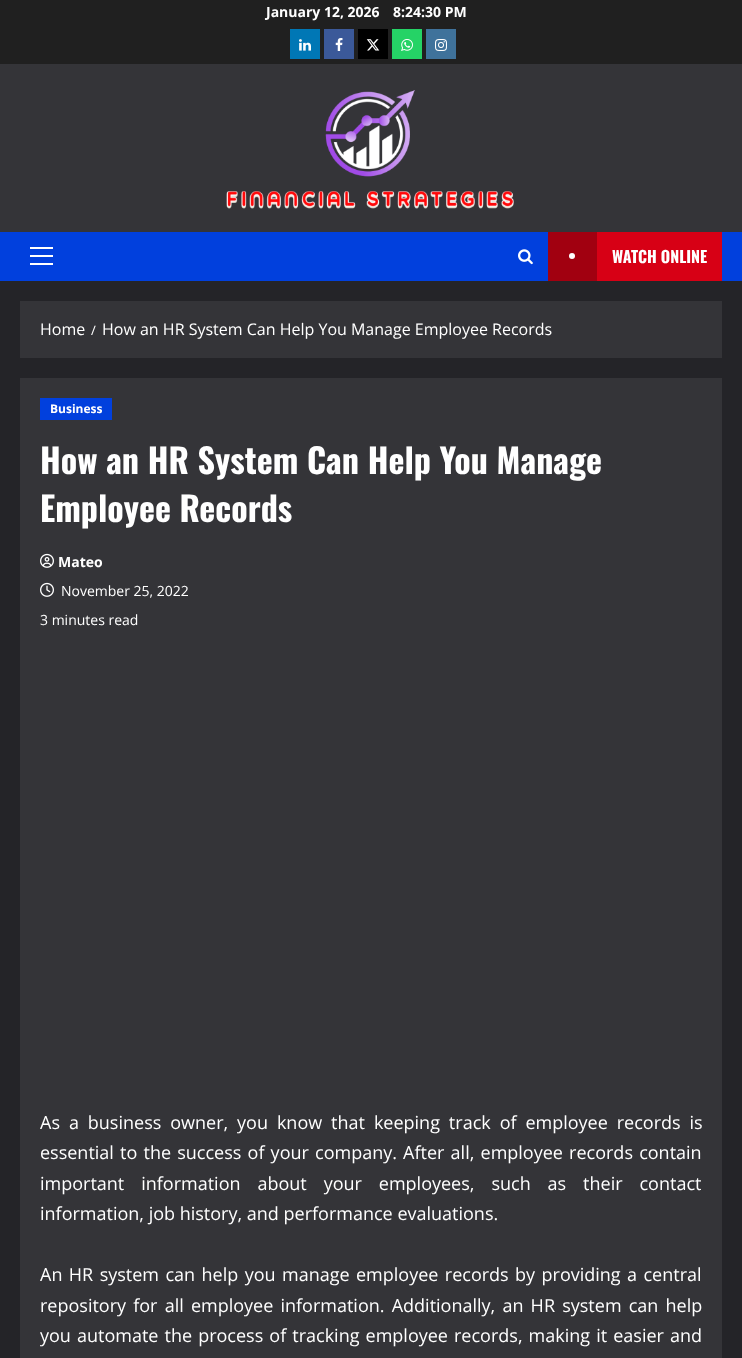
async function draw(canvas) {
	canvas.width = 742;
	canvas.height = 1358;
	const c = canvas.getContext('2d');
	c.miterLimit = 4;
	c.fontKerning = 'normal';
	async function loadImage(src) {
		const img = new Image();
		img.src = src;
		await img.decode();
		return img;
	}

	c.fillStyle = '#242428';
	c.fillRect(0, 0, 742, 1358);
	c.fillStyle = '#202020';
	c.fillRect(0, 0, 742, 64);
	c.font = 'bold 14px Open Sans';
	c.fillStyle = '#fff';
	c.fillText('January 12, 2026', 266, 17);
	c.fillText('8:24:30 PM', 393, 17);
	c.fillStyle = '#0077b5';
	c.fillRect(290, 29, 30, 30);
	c.drawImage(await loadImage('img1.png'), 299, 39, 12, 12);
	c.fillStyle = '#3b5999';
	c.fillRect(324, 29, 30, 30);
	c.drawImage(await loadImage('img2.png'), 335, 38, 8, 13);
	c.fillStyle = '#000';
	c.fillRect(358, 29, 30, 30);
	c.drawImage(await loadImage('img3.png'), 366, 39, 14, 12);
	c.fillStyle = '#25d366';
	c.fillRect(392, 29, 30, 30);
	c.drawImage(await loadImage('img4.png'), 401, 39, 12, 12);
	c.fillStyle = '#3f729b';
	c.fillRect(426, 29, 30, 30);
	c.drawImage(await loadImage('img5.png'), 435, 39, 12, 12);
	c.fillStyle = '#343438';
	c.fillRect(0, 64, 742, 168);
	c.drawImage(await loadImage('img6.png'), 226, 90, 288, 119);
	for (const [x, y, w, h, color] of [
		[0, 232, 742, 49, '#0140dd'],
		[30, 255, 23, 2, '#fff'],
		[30, 247, 23, 2, '#fff'],
		[30, 263, 23, 2, '#fff'],
	]) {
		c.fillStyle = color;
		c.fillRect(x, y, w, h);
	}
	c.drawImage(await loadImage('img7.png'), 518, 249, 15, 16);
	c.fillStyle = '#d70015';
	c.fillRect(597, 232, 125, 49);
	c.fillStyle = '#a10010';
	c.fillRect(548, 232, 49, 49);
	c.fillStyle = '#fff';
	c.beginPath();
	c.arc(572, 256, 3, 0, 2 * Math.PI);
	c.fill();
	c.font = 'bold 16px Oswald';
	c.fillText('WATCH ONLINE', 612, 263);
	c.fillStyle = '#343438';
	c.fillRect(20, 301, 702, 57);
	c.font = '16px Open Sans';
	c.fillStyle = '#fff';
	c.fillText('Home', 40, 335);
	c.font = '13px Open Sans';
	c.fillText('/', 91, 335);
	c.font = '16px Open Sans';
	c.fillText('How an HR System Can Help You Manage Employee Records', 102, 335);
	c.fillStyle = '#343438';
	c.fillRect(20, 378, 702, 980);
	c.fillStyle = '#0140dd';
	c.fillRect(40, 398, 72, 22);
	c.font = 'bold 12px Open Sans';
	c.fillStyle = '#fff';
	c.fillText('Business', 50, 413);
	c.font = 'bold 34px Oswald';
	c.fillText('How an HR System Can Help You Manage', 40, 474);
	c.fillText('Employee Records', 40, 522);
	c.drawImage(await loadImage('img8.png'), 40, 553, 14, 15);
	c.font = 'bold 14px Open Sans';
	c.fillText('Mateo', 58, 567);
	c.drawImage(await loadImage('img9.png'), 40, 582, 14, 15);
	c.font = '14px Open Sans';
	c.fillText('November 25, 2022', 61, 596);
	c.fillText('3 minutes read', 40, 625);
	c.wordSpacing = '4.25px';
	c.font = '18px Open Sans';
	c.fillText('As a business owner, you know that keeping track of employee records is', 40, 1129);
	c.wordSpacing = '1.5px';
	c.fillText('essential to the success of your company. After all, employee records contain', 40, 1159);
	c.wordSpacing = '12.25px';
	c.fillText('important information about your employees, such as their contact', 40, 1190);
	c.wordSpacing = '0px';
	c.fillText('information, job history, and performance evaluations.', 40, 1220);
	c.wordSpacing = '1.75px';
	c.fillText('An HR system can help you manage employee records by providing a central', 40, 1281);
	c.wordSpacing = '2.5px';
	c.fillText('repository for all employee information. Additionally, an HR system can help', 40, 1312);
	c.wordSpacing = '1.4px';
	c.fillText('you automate the process of tracking employee records, making it easier and', 40, 1342);
}

draw(document.querySelector('canvas'));
